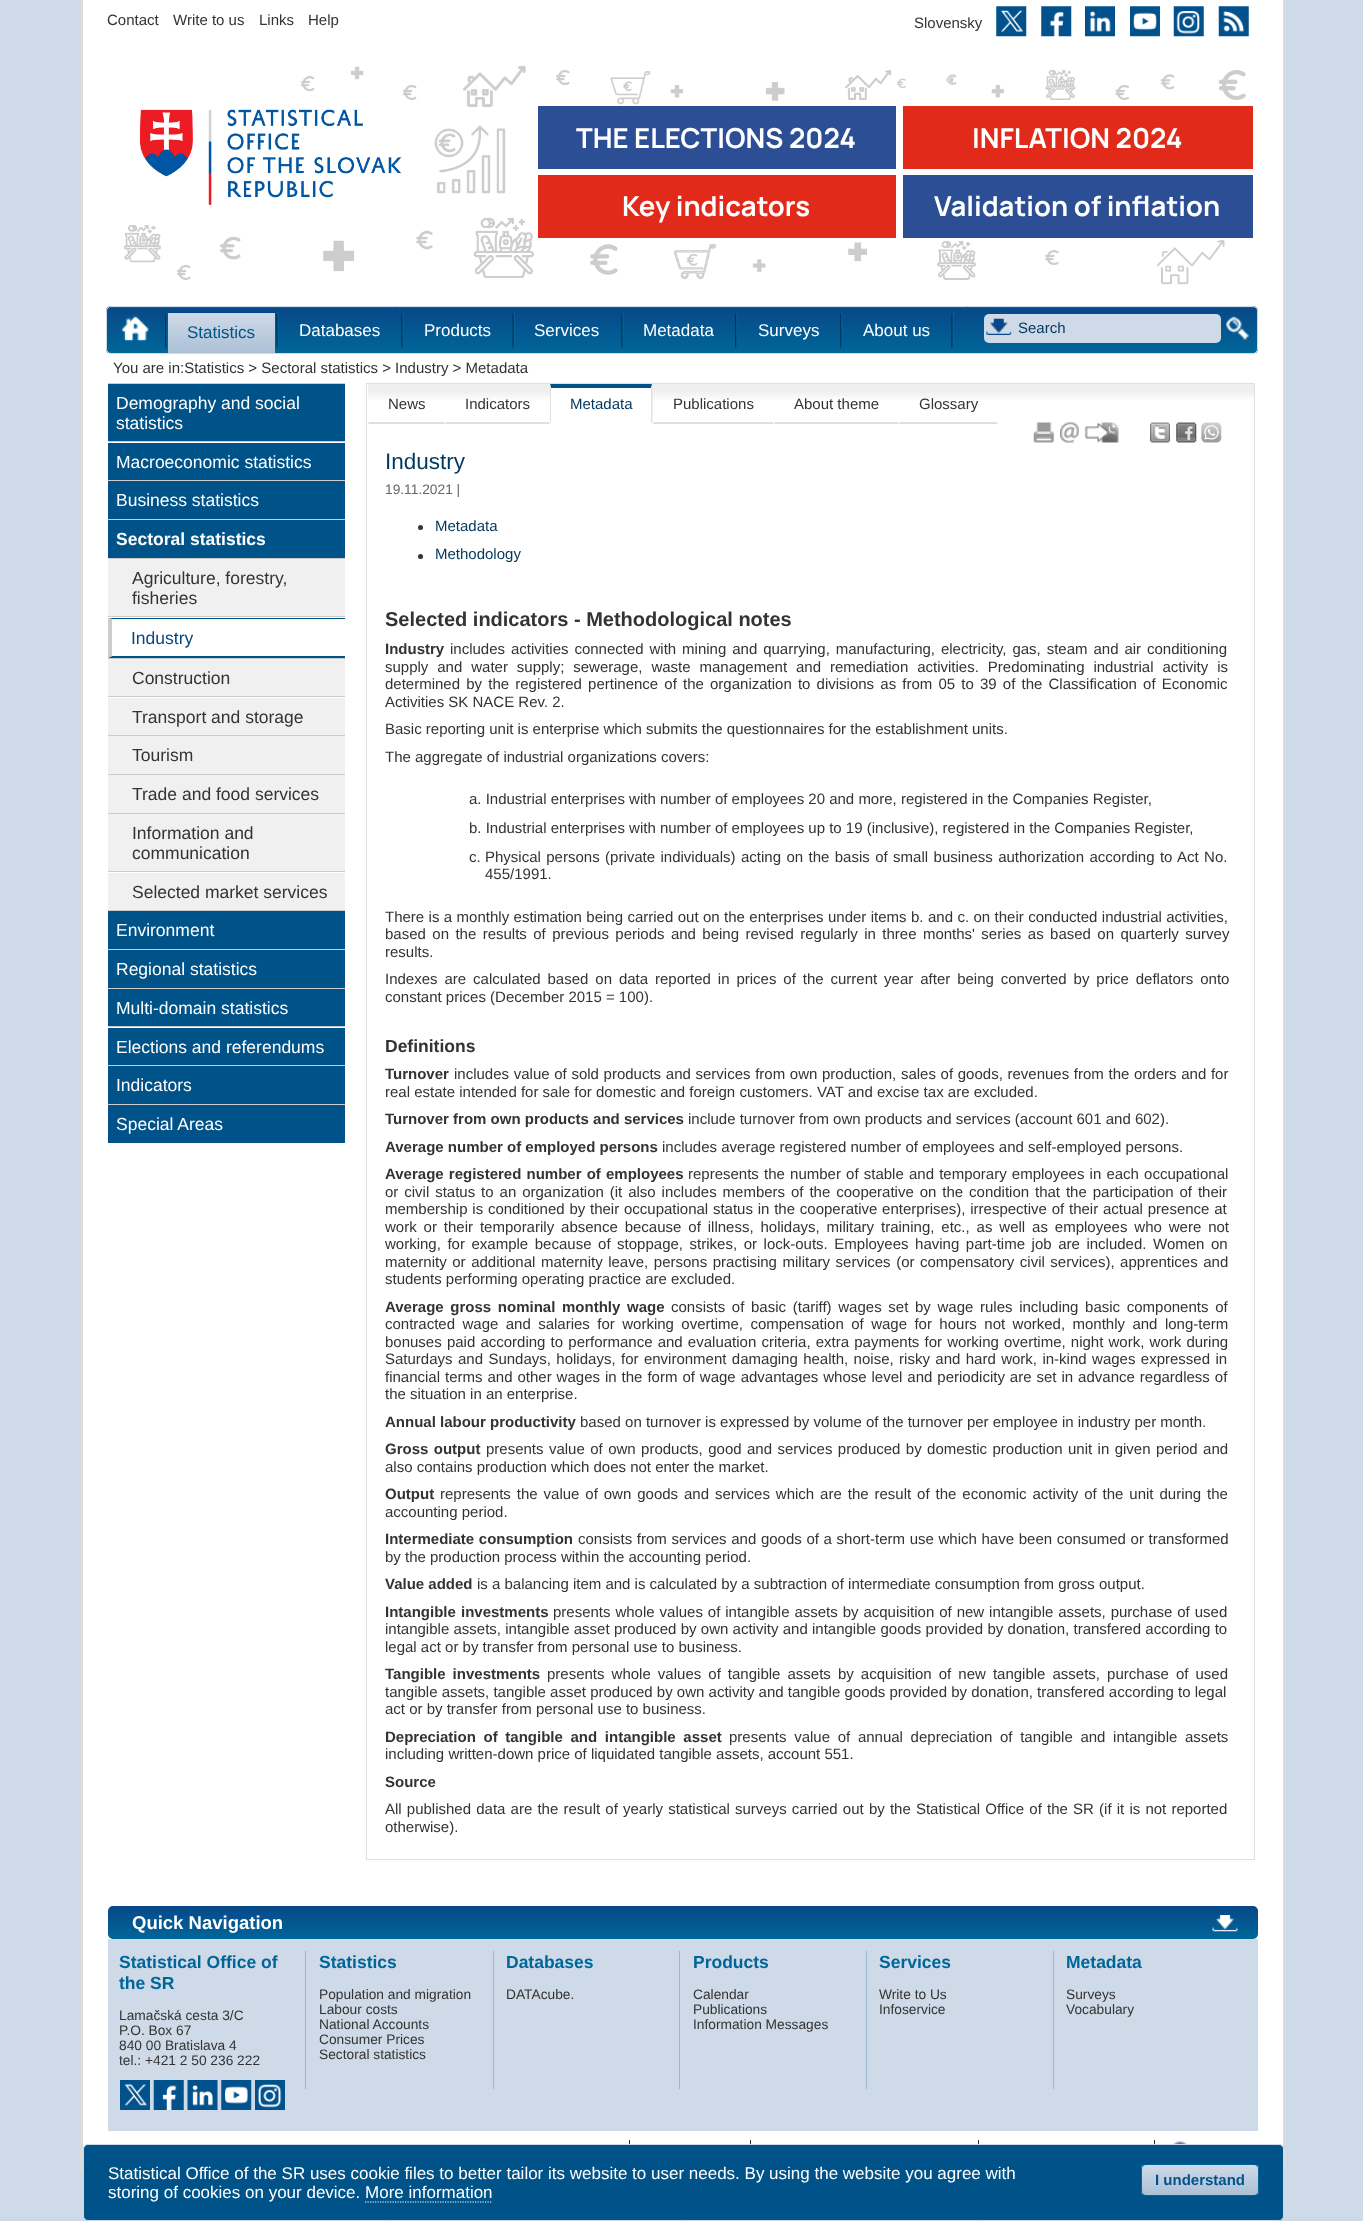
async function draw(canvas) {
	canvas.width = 1363;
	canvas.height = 2221;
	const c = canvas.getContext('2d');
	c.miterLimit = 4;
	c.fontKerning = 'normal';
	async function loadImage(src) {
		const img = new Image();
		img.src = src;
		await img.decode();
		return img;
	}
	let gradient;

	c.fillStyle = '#cedae7';
	c.fillRect(0, 0, 1363, 2221);
	for (const [x, y, w, h, color] of [
		[83, 0, 1200, 2149, '#fff'],
		[1283, 0, 3, 2171, '#dadbdc'],
		[80, 2169, 1205, 3, '#dadbdc'],
		[80, 0, 3, 2171, '#dadbdc'],
	]) {
		c.fillStyle = color;
		c.fillRect(x, y, w, h);
	}
	c.font = '15px Liberation Sans';
	c.fillStyle = '#333';
	for (const [text, x, y] of [
		['Contact', 107, 25],
		['Write to us', 173, 25],
		['Links', 259, 25],
		['Help', 308, 25],
		['Slovensky', 914, 28],
	]) {
		c.fillText(text, x, y);
	}
	c.drawImage(await loadImage('img1.png'), 996, 6, 31, 31);
	c.drawImage(await loadImage('img2.png'), 1041, 6, 31, 31);
	c.drawImage(await loadImage('img3.png'), 1085, 6, 30, 31);
	c.drawImage(await loadImage('img4.png'), 1130, 6, 30, 31);
	c.drawImage(await loadImage('img5.png'), 1173, 6, 31, 31);
	c.drawImage(await loadImage('img6.png'), 1218, 6, 31, 31);
	c.drawImage(await loadImage('img7.png'), 124, 65, 1122, 220);
	c.drawImage(await loadImage('img8.png'), 140, 109, 262, 96);
	c.fillStyle = '#2c4e95';
	c.fillRect(538, 106, 358, 63);
	c.font = '200 27.5px Manrope';
	c.fillStyle = '#fff';
	c.fillText('THE ELECTIONS 2024', 576, 148);
	c.fillStyle = '#e12a19';
	c.fillRect(903, 106, 350, 63);
	c.fillStyle = '#fff';
	c.fillText('INFLATION 2024', 972, 148);
	c.fillStyle = '#e12a19';
	c.fillRect(538, 175, 358, 63);
	c.fillStyle = '#fff';
	c.fillText('Key indicators', 622, 216);
	c.fillStyle = '#2c4e95';
	c.fillRect(903, 175, 350, 63);
	c.fillStyle = '#fff';
	c.fillText('Validation of inflation', 934, 216);
	c.save();
	c.beginPath();
	c.roundRect(106, 306, 1152, 48, 5);
	c.clip();
	gradient = c.createLinearGradient(682, 262, 682, 308);
	gradient.addColorStop(0, '#084888');
	gradient.addColorStop(1, '#069');
	c.fillStyle = gradient;
	c.fillRect(106, 306, 1152, 2);
	gradient = c.createLinearGradient(682, 307, 682, 353);
	gradient.addColorStop(0, '#084888');
	gradient.addColorStop(1, '#069');
	c.fillStyle = gradient;
	c.fillRect(106, 308, 1152, 45);
	c.restore();
	c.beginPath();
	c.roundRect(106.5, 306.5, 1151, 47, 4.5);
	c.strokeStyle = '#cedae7';
	c.stroke();
	c.drawImage(await loadImage('img9.png'), 121, 315, 29, 27);
	c.drawImage(await loadImage('img10.png'), 165, 312, 3, 36);
	gradient = c.createLinearGradient(221, 313, 221, 353);
	gradient.addColorStop(0, '#cedae7');
	gradient.addColorStop(1, '#acc0d7');
	c.fillStyle = gradient;
	c.fillRect(168, 313, 107, 40);
	c.fillStyle = '#084888';
	c.fillRect(168, 311, 107, 2);
	c.font = '17px Liberation Sans';
	c.fillStyle = '#005388';
	c.fillText('Statistics', 187, 338);
	c.drawImage(await loadImage('img11.png'), 276, 312, 3, 36);
	c.fillStyle = '#fff';
	c.fillText('Databases', 299, 336);
	c.drawImage(await loadImage('img12.png'), 401, 312, 3, 36);
	c.fillText('Products', 424, 336);
	c.drawImage(await loadImage('img13.png'), 512, 312, 3, 36);
	c.fillText('Services', 534, 336);
	c.drawImage(await loadImage('img12.png'), 621, 312, 3, 36);
	c.fillText('Metadata', 643, 336);
	c.drawImage(await loadImage('img10.png'), 735, 312, 3, 36);
	c.fillText('Surveys', 758, 336);
	c.drawImage(await loadImage('img10.png'), 840, 312, 3, 36);
	c.fillText('About us', 863, 336);
	c.drawImage(await loadImage('img11.png'), 951, 312, 3, 36);
	c.fillStyle = '#cedae7';
	c.beginPath();
	c.roundRect(984, 314, 32, 29, [5, 0, 0, 5]);
	c.fill();
	c.drawImage(await loadImage('img14.png'), 986, 318, 26, 17);
	c.beginPath();
	c.roundRect(1016, 314, 205, 29, [0, 5, 5, 0]);
	c.fill();
	c.font = '15px Liberation Sans';
	c.fillStyle = '#00385e';
	c.fillText('Search', 1018, 333);
	c.drawImage(await loadImage('img15.png'), 1226, 316, 23, 24);
	c.fillStyle = '#333';
	c.fillText('You are in:Statistics > Sectoral statistics > Industry > Metadata', 113, 373);
	c.fillStyle = '#ccc';
	c.fillRect(108, 383, 237, 1);
	c.fillStyle = '#005388';
	c.fillRect(108, 384, 237, 57);
	c.font = '17.5px Liberation Sans';
	c.fillStyle = '#fff';
	c.fillText('Demography and social', 116, 409);
	c.fillText('statistics', 116, 429);
	c.fillStyle = '#ccc';
	c.fillRect(108, 441, 237, 1);
	c.fillStyle = '#005388';
	c.fillRect(108, 443, 237, 37);
	c.fillStyle = '#fff';
	c.fillText('Macroeconomic statistics', 116, 468);
	c.fillStyle = '#ccc';
	c.fillRect(108, 480, 237, 1);
	c.fillStyle = '#005388';
	c.fillRect(108, 481, 237, 38);
	c.fillStyle = '#fff';
	c.fillText('Business statistics', 116, 506);
	c.fillStyle = '#ccc';
	c.fillRect(108, 519, 237, 1);
	c.fillStyle = '#005388';
	c.fillRect(108, 520, 237, 38);
	c.font = 'bold 17.5px Liberation Sans';
	c.fillStyle = '#fff';
	c.fillText('Sectoral statistics', 116, 545);
	c.fillStyle = '#ccc';
	c.fillRect(108, 558, 237, 1);
	c.fillStyle = '#f0f0f0';
	c.fillRect(108, 559, 237, 57);
	c.font = '17.5px Liberation Sans';
	c.fillStyle = '#333';
	c.fillText('Agriculture, forestry,', 132, 584);
	c.fillText('fisheries', 132, 604);
	c.fillStyle = '#ccc';
	c.fillRect(108, 616, 237, 1);
	c.fillStyle = '#005388';
	c.beginPath();
	c.moveTo(108, 618);
	c.lineTo(345, 618);
	c.lineTo(345, 619);
	c.lineTo(112, 619);
	c.closePath();
	c.fill();
	c.beginPath();
	c.moveTo(345, 658);
	c.lineTo(108, 658);
	c.lineTo(112, 656);
	c.lineTo(345, 656);
	c.closePath();
	c.fill();
	c.fillStyle = '#ccc';
	c.beginPath();
	c.moveTo(108, 658);
	c.lineTo(108, 618);
	c.lineTo(112, 619);
	c.lineTo(112, 656);
	c.closePath();
	c.fill();
	c.fillStyle = '#064685';
	c.fillText('Industry', 131, 644);
	c.fillStyle = '#ccc';
	c.fillRect(108, 658, 237, 1);
	c.fillStyle = '#f0f0f0';
	c.fillRect(108, 659, 237, 37);
	c.fillStyle = '#333';
	c.fillText('Construction', 132, 684);
	c.fillStyle = '#ccc';
	c.fillRect(108, 696, 237, 1);
	c.fillStyle = '#f0f0f0';
	c.fillRect(108, 698, 237, 37);
	c.fillStyle = '#333';
	c.fillText('Transport and storage', 132, 723);
	c.fillStyle = '#ccc';
	c.fillRect(108, 735, 237, 1);
	c.fillStyle = '#f0f0f0';
	c.fillRect(108, 736, 237, 38);
	c.fillStyle = '#333';
	c.fillText('Tourism', 132, 761);
	c.fillStyle = '#ccc';
	c.fillRect(108, 774, 237, 1);
	c.fillStyle = '#f0f0f0';
	c.fillRect(108, 775, 237, 38);
	c.fillStyle = '#333';
	c.fillText('Trade and food services', 132, 800);
	c.fillStyle = '#ccc';
	c.fillRect(108, 813, 237, 1);
	c.fillStyle = '#f0f0f0';
	c.fillRect(108, 814, 237, 57);
	c.fillStyle = '#333';
	c.fillText('Information and', 132, 839);
	c.fillText('communication', 132, 859);
	c.fillStyle = '#ccc';
	c.fillRect(108, 871, 237, 1);
	c.fillStyle = '#f0f0f0';
	c.fillRect(108, 873, 237, 37);
	c.fillStyle = '#333';
	c.fillText('Selected market services', 132, 898);
	c.fillStyle = '#ccc';
	c.fillRect(108, 910, 237, 1);
	c.fillStyle = '#005388';
	c.fillRect(108, 911, 237, 38);
	c.fillStyle = '#fff';
	c.fillText('Environment', 116, 936);
	c.fillStyle = '#ccc';
	c.fillRect(108, 949, 237, 1);
	c.fillStyle = '#005388';
	c.fillRect(108, 950, 237, 38);
	c.fillStyle = '#fff';
	c.fillText('Regional statistics', 116, 975);
	c.fillStyle = '#ccc';
	c.fillRect(108, 988, 237, 1);
	c.fillStyle = '#005388';
	c.fillRect(108, 989, 237, 37);
	c.fillStyle = '#fff';
	c.fillText('Multi-domain statistics', 116, 1014);
	c.fillStyle = '#ccc';
	c.fillRect(108, 1026, 237, 1);
	c.fillStyle = '#005388';
	c.fillRect(108, 1028, 237, 37);
	c.fillStyle = '#fff';
	c.fillText('Elections and referendums', 116, 1053);
	c.fillStyle = '#ccc';
	c.fillRect(108, 1065, 237, 1);
	c.fillStyle = '#005388';
	c.fillRect(108, 1066, 237, 38);
	c.fillStyle = '#fff';
	c.fillText('Indicators', 116, 1091);
	c.fillStyle = '#ccc';
	c.fillRect(108, 1104, 237, 1);
	c.fillStyle = '#005388';
	c.fillRect(108, 1105, 237, 38);
	c.fillStyle = '#fff';
	c.fillText('Special Areas', 116, 1130);
	c.strokeStyle = '#dfdfdf';
	c.strokeRect(366.5, 383.5, 888, 1476);
	gradient = c.createLinearGradient(368, 384, 368, 409);
	gradient.addColorStop(0.3, '#efefef');
	gradient.addColorStop(0.7, '#fff');
	c.fillStyle = gradient;
	c.fillRect(368, 384, 886, 16);
	c.fillStyle = '#dfdfdf';
	c.beginPath();
	c.moveTo(445, 424);
	c.lineTo(368, 424);
	c.lineTo(369, 422);
	c.lineTo(444, 422);
	c.closePath();
	c.fill();
	c.font = '15px Liberation Sans';
	c.fillStyle = '#333';
	c.fillText('News', 388, 409);
	c.fillStyle = '#dfdfdf';
	c.beginPath();
	c.moveTo(550, 424);
	c.lineTo(445, 424);
	c.lineTo(446, 422);
	c.lineTo(549, 422);
	c.closePath();
	c.fill();
	c.fillStyle = '#333';
	c.fillText('Indicators', 465, 409);
	c.fillStyle = '#fff';
	c.fillRect(551, 388, 100, 12);
	c.fillStyle = '#005388';
	c.beginPath();
	c.moveTo(550, 384);
	c.lineTo(652, 384);
	c.lineTo(651, 388);
	c.lineTo(551, 388);
	c.closePath();
	c.fill();
	c.fillStyle = '#e1e1e1';
	c.beginPath();
	c.moveTo(652.5, 384);
	c.lineTo(652.5, 422.5);
	c.lineTo(651, 422.5);
	c.lineTo(651, 387.5);
	c.closePath();
	c.fill();
	c.beginPath();
	c.moveTo(550, 422.5);
	c.lineTo(550, 384);
	c.lineTo(551, 387.5);
	c.lineTo(551, 422.5);
	c.closePath();
	c.fill();
	c.fillStyle = '#00385e';
	c.fillText('Metadata', 570, 409);
	c.fillStyle = '#dfdfdf';
	c.beginPath();
	c.moveTo(774, 424);
	c.lineTo(652, 424);
	c.lineTo(654, 422);
	c.lineTo(772, 422);
	c.closePath();
	c.fill();
	c.fillStyle = '#333';
	c.fillText('Publications', 673, 409);
	c.fillStyle = '#dfdfdf';
	c.beginPath();
	c.moveTo(899, 424);
	c.lineTo(774, 424);
	c.lineTo(775, 422);
	c.lineTo(898, 422);
	c.closePath();
	c.fill();
	c.fillStyle = '#333';
	c.fillText('About theme', 794, 409);
	c.fillStyle = '#dfdfdf';
	c.beginPath();
	c.moveTo(998, 424);
	c.lineTo(899, 424);
	c.lineTo(900, 422);
	c.lineTo(996, 422);
	c.closePath();
	c.fill();
	c.fillStyle = '#333';
	c.fillText('Glossary', 919, 409);
	c.drawImage(await loadImage('img16.png'), 1033, 422, 21, 21);
	c.drawImage(await loadImage('img17.png'), 1060, 422, 19, 21);
	c.drawImage(await loadImage('img18.png'), 1085, 422, 34, 21);
	c.drawImage(await loadImage('img19.png'), 1150, 422, 20, 21);
	c.drawImage(await loadImage('img20.png'), 1176, 422, 21, 21);
	c.drawImage(await loadImage('img21.png'), 1201, 422, 21, 21);
	c.font = '22.5px Liberation Sans';
	c.fillStyle = '#00385e';
	c.fillText('Industry', 385, 469);
	c.font = '13.75px Liberation Sans';
	c.fillStyle = '#666';
	c.fillText('19.11.2021 |', 385, 494);
	c.fillStyle = '#333';
	c.beginPath();
	c.arc(420.5, 527.5, 2.5, 0, 2 * Math.PI);
	c.fill();
	c.font = '15px Liberation Sans';
	c.fillStyle = '#00385e';
	c.fillText('Metadata', 435, 531);
	c.fillStyle = '#333';
	c.beginPath();
	c.arc(420.5, 556.5, 2.5, 0, 2 * Math.PI);
	c.fill();
	c.fillStyle = '#00385e';
	c.fillText('Methodology', 435, 559);
	c.font = 'bold 20px Liberation Sans';
	c.fillStyle = '#333';
	c.fillText('Selected indicators - Methodological notes', 385, 626);
	c.font = 'bold 15px Liberation Sans';
	c.fillText('Industry', 385, 654);
	c.wordSpacing = '1.75px';
	c.font = '15px Liberation Sans';
	c.fillText('includes activities connected with mining and quarrying, manufacturing, electricity, gas, steam and air conditioning', 450, 654);
	c.wordSpacing = '4.75px';
	c.fillText('supply and water supply; sewerage, waste management and remediation activities. Predominating industrial activity is', 385, 672);
	c.wordSpacing = '2px';
	c.fillText('determined by the registered pertinence of the organization to divisions as from 05 to 39 of the Classification of Economic', 385, 689);
	c.wordSpacing = '0px';
	for (const [text, x, y] of [
		['Activities SK NACE Rev. 2.', 385, 707],
		['Basic reporting unit is enterprise which submits the questionnaires for the establishment units.', 385, 734],
		['The aggregate of industrial organizations covers:', 385, 762],
		['a. Industrial enterprises with number of employees 20 and more, registered in the Companies Register,', 469, 804],
		['b. Industrial enterprises with number of employees up to 19 (inclusive), registered in the Companies Register,', 469, 833],
		['c.', 469, 862],
	]) {
		c.fillText(text, x, y);
	}
	c.wordSpacing = '1.25px';
	c.fillText('Physical persons (private individuals) acting on the basis of small business authorization according to Act No.', 485, 862);
	c.wordSpacing = '0px';
	c.fillText('455/1991.', 485, 879);
	c.wordSpacing = '0.25px';
	c.fillText('There is a monthly estimation being carried out on the enterprises under items b. and c. on their conducted industrial activities,', 385, 922);
	c.wordSpacing = '2.25px';
	c.fillText('based on the results of previous periods and being revised regularly in three months\' series as based on quarterly survey', 385, 939);
	c.wordSpacing = '0px';
	c.fillText('results.', 385, 957);
	c.wordSpacing = '2.75px';
	c.fillText('Indexes are calculated based on data reported in prices of the current year after being converted by price deflators onto', 385, 984);
	c.wordSpacing = '0px';
	c.fillText('constant prices (December 2015 = 100).', 385, 1002);
	c.font = 'bold 17.5px Liberation Sans';
	c.fillText('Definitions', 385, 1052);
	c.font = 'bold 15px Liberation Sans';
	c.fillText('Turnover', 385, 1079);
	c.wordSpacing = '0.5px';
	c.font = '15px Liberation Sans';
	c.fillText('includes value of sold products and services from own production, sales of goods, revenues from the orders and for', 454, 1079);
	c.wordSpacing = '0px';
	c.fillText('real estate intended for sale for domestic and foreign customers. VAT and excise tax are excluded.', 385, 1097);
	c.font = 'bold 15px Liberation Sans';
	c.fillText('Turnover from own products and services', 385, 1124);
	c.font = '15px Liberation Sans';
	c.fillText('include turnover from own products and services (account 601 and 602).', 688, 1124);
	c.font = 'bold 15px Liberation Sans';
	c.fillText('Average number of employed persons', 385, 1152);
	c.font = '15px Liberation Sans';
	c.fillText('includes average registered number of employees and self-employed persons.', 662, 1152);
	c.wordSpacing = '1px';
	c.font = 'bold 15px Liberation Sans';
	c.fillText('Average registered number of employees', 385, 1179);
	c.font = '15px Liberation Sans';
	c.fillText('represents the number of stable and temporary employees in each occupational', 688, 1179);
	c.wordSpacing = '1.75px';
	c.fillText('or civil status to an organization (it also includes members of the cooperative on the condition that the participation of their', 385, 1197);
	c.wordSpacing = '0.6px';
	c.fillText('membership is conditioned by their occupational status in the cooperative enterprises), irrespective of their actual presence at', 385, 1214);
	c.wordSpacing = '2.75px';
	c.fillText('work or their temporarily absence because of illness, holidays, military training, etc., as well as employees who were not', 385, 1232);
	c.wordSpacing = '2.4px';
	c.fillText('working, for example because of stoppage, strikes, or lock-outs. Employees having part-time job are included. Women on', 385, 1249);
	c.wordSpacing = '1.4px';
	c.fillText('maternity or additional maternity leave, persons practising military services (or compensatory civil services), apprentices and', 385, 1267);
	c.wordSpacing = '0px';
	c.fillText('students performing operating practice are excluded.', 385, 1284);
	c.wordSpacing = '2.5px';
	c.font = 'bold 15px Liberation Sans';
	c.fillText('Average gross nominal monthly wage', 385, 1312);
	c.font = '15px Liberation Sans';
	c.fillText('consists of basic (tariff) wages set by wage rules including basic components of', 671, 1312);
	c.wordSpacing = '3.25px';
	c.fillText('contracted wage and salaries for working overtime, compensation of wage for hours not worked, monthly and long-term', 385, 1329);
	c.wordSpacing = '1px';
	c.fillText('bonuses paid according to performance and evaluation criteria, extra payments for working overtime, night work, work during', 385, 1347);
	c.wordSpacing = '1.25px';
	c.fillText('Saturdays and Sundays, holidays, for environment damaging health, noise, risky and hard work, in-kind wages expressed in', 385, 1364);
	c.wordSpacing = '0.8px';
	c.fillText('financial terms and other wages in the form of wage advantages whose level and periodicity are set in advance regardless of', 385, 1382);
	c.wordSpacing = '0px';
	c.fillText('the situation in an enterprise.', 385, 1399);
	c.font = 'bold 15px Liberation Sans';
	c.fillText('Annual labour productivity', 385, 1427);
	c.font = '15px Liberation Sans';
	c.fillText('based on turnover is expressed by volume of the turnover per employee in industry per month.', 580, 1427);
	c.wordSpacing = '1.25px';
	c.font = 'bold 15px Liberation Sans';
	c.fillText('Gross output', 385, 1454);
	c.font = '15px Liberation Sans';
	c.fillText('presents value of own products, good and services produced by domestic production unit in given period and', 486, 1454);
	c.wordSpacing = '0px';
	c.fillText('also contains production which does not enter the market.', 385, 1472);
	c.font = 'bold 15px Liberation Sans';
	c.fillText('Output', 385, 1499);
	c.wordSpacing = '1.75px';
	c.font = '15px Liberation Sans';
	c.fillText('represents the value of own goods and services which are the result of the economic activity of the unit during the', 440, 1499);
	c.wordSpacing = '0px';
	c.fillText('accounting period.', 385, 1517);
	c.wordSpacing = '0.5px';
	c.font = 'bold 15px Liberation Sans';
	c.fillText('Intermediate consumption', 385, 1544);
	c.font = '15px Liberation Sans';
	c.fillText('consists from services and goods of a short-term use which have been consumed or transformed', 578, 1544);
	c.wordSpacing = '0px';
	c.fillText('by the production process within the accounting period.', 385, 1562);
	c.font = 'bold 15px Liberation Sans';
	c.fillText('Value added', 385, 1589);
	c.font = '15px Liberation Sans';
	c.fillText('is a balancing item and is calculated by a subtraction of intermediate consumption from gross output.', 477, 1589);
	c.wordSpacing = '1px';
	c.font = 'bold 15px Liberation Sans';
	c.fillText('Intangible investments', 385, 1617);
	c.wordSpacing = '0.75px';
	c.font = '15px Liberation Sans';
	c.fillText('presents whole values of intangible assets by acquisition of new intangible assets, purchase of used', 553, 1617);
	c.wordSpacing = '0.1px';
	c.fillText('intangible assets, intangible asset produced by own activity and intangible goods provided by donation, transfered according to', 385, 1634);
	c.wordSpacing = '0px';
	c.fillText('legal act or by transfer from personal use to business.', 385, 1652);
	c.wordSpacing = '2.9px';
	c.font = 'bold 15px Liberation Sans';
	c.fillText('Tangible investments', 385, 1679);
	c.font = '15px Liberation Sans';
	c.fillText('presents whole values of tangible assets by acquisition of new tangible assets, purchase of used', 547, 1679);
	c.wordSpacing = '0px';
	c.fillText('tangible assets, tangible asset produced by own activity and tangible goods provided by donation, transfered according to legal', 385, 1697);
	c.fillText('act or by transfer from personal use to business.', 385, 1714);
	c.wordSpacing = '3.5px';
	c.font = 'bold 15px Liberation Sans';
	c.fillText('Depreciation of tangible and intangible asset', 385, 1742);
	c.font = '15px Liberation Sans';
	c.fillText('presents value of annual depreciation of tangible and intangible assets', 729, 1742);
	c.wordSpacing = '0px';
	c.fillText('including written-down price of liquidated tangible assets, account 551.', 385, 1759);
	c.font = 'bold 15px Liberation Sans';
	c.fillText('Source', 385, 1787);
	c.wordSpacing = '1px';
	c.font = '15px Liberation Sans';
	c.fillText('All published data are the result of yearly statistical surveys carried out by the Statistical Office of the SR (if it is not reported', 385, 1814);
	c.wordSpacing = '0px';
	c.fillText('otherwise).', 385, 1832);
	gradient = c.createLinearGradient(683, 1906, 683, 1939);
	gradient.addColorStop(0, '#084888');
	gradient.addColorStop(1, '#069');
	c.fillStyle = gradient;
	c.beginPath();
	c.roundRect(108, 1906, 1150, 33, 5);
	c.fill();
	c.drawImage(await loadImage('img22.png'), 1212, 1915, 26, 17);
	c.font = 'bold 18.5px Liberation Sans';
	c.fillStyle = '#fff';
	c.fillText('Quick Navigation', 132, 1929);
	c.fillStyle = '#cedae7';
	c.fillRect(108, 1939, 1150, 192);
	c.font = 'bold 17.5px Liberation Sans';
	c.fillStyle = '#069';
	c.fillText('Statistical Office of', 119, 1968);
	c.fillText('the SR', 119, 1989);
	c.font = '13.75px Liberation Sans';
	c.fillStyle = '#333';
	for (const [text, x, y] of [
		['Lamačská cesta 3/C', 119, 2020],
		['P.O. Box 67', 119, 2035],
		['840 00 Bratislava 4', 119, 2050],
		['tel.: +421 2 50 236 222', 119, 2065],
	]) {
		c.fillText(text, x, y);
	}
	c.drawImage(await loadImage('img23.png'), 120, 2080, 30, 30);
	c.drawImage(await loadImage('img24.png'), 153, 2080, 31, 30);
	c.drawImage(await loadImage('img25.png'), 187, 2080, 31, 30);
	c.drawImage(await loadImage('img26.png'), 221, 2080, 31, 30);
	c.drawImage(await loadImage('img27.png'), 255, 2080, 30, 30);
	c.fillStyle = '#9eb6cf';
	c.fillRect(305, 1951, 1, 138);
	c.font = 'bold 17.5px Liberation Sans';
	c.fillStyle = '#069';
	c.fillText('Statistics', 319, 1968);
	c.font = '13.75px Liberation Sans';
	c.fillStyle = '#333';
	for (const [text, x, y] of [
		['Population and migration', 319, 1999],
		['Labour costs', 319, 2014],
		['National Accounts', 319, 2029],
		['Consumer Prices', 319, 2044],
		['Sectoral statistics', 319, 2059],
	]) {
		c.fillText(text, x, y);
	}
	c.fillStyle = '#9eb6cf';
	c.fillRect(493, 1951, 1, 138);
	c.font = 'bold 17.5px Liberation Sans';
	c.fillStyle = '#069';
	c.fillText('Databases', 506, 1968);
	c.font = '13.75px Liberation Sans';
	c.fillStyle = '#333';
	c.fillText('DATAcube.', 506, 1999);
	c.fillStyle = '#9eb6cf';
	c.fillRect(679, 1951, 1, 138);
	c.font = 'bold 17.5px Liberation Sans';
	c.fillStyle = '#069';
	c.fillText('Products', 693, 1968);
	c.font = '13.75px Liberation Sans';
	c.fillStyle = '#333';
	for (const [text, x, y] of [
		['Calendar', 693, 1999],
		['Publications', 693, 2014],
		['Information Messages', 693, 2029],
	]) {
		c.fillText(text, x, y);
	}
	c.fillStyle = '#9eb6cf';
	c.fillRect(866, 1951, 1, 138);
	c.font = 'bold 17.5px Liberation Sans';
	c.fillStyle = '#069';
	c.fillText('Services', 879, 1968);
	c.font = '13.75px Liberation Sans';
	c.fillStyle = '#333';
	c.fillText('Write to Us', 879, 1999);
	c.fillText('Infoservice', 879, 2014);
	c.fillStyle = '#9eb6cf';
	c.fillRect(1053, 1951, 1, 138);
	c.font = 'bold 17.5px Liberation Sans';
	c.fillStyle = '#069';
	c.fillText('Metadata', 1066, 1968);
	c.font = '13.75px Liberation Sans';
	c.fillStyle = '#333';
	c.fillText('Surveys', 1066, 1999);
	c.fillText('Vocabulary', 1066, 2014);
	for (const [x, y, w, h, color] of [
		[629, 2140, 1, 4, '#333'],
		[750, 2140, 1, 4, '#333'],
		[978, 2140, 1, 4, '#333'],
		[1154, 2140, 1, 4, '#333'],
	]) {
		c.fillStyle = color;
		c.fillRect(x, y, w, h);
	}
	c.drawImage(await loadImage('img28.png'), 1173, 2141, 14, 3);
	c.fillStyle = '#005388';
	c.beginPath();
	c.roundRect(83.5, 2144.5, 1200, 76, 4.5);
	c.fill();
	c.strokeStyle = '#cedae7';
	c.stroke();
	c.font = '17px Liberation Sans';
	c.fillStyle = '#fff';
	c.fillText('Statistical Office of the SR uses cookie files to better tailor its website to user needs. By using the website you agree with', 108, 2179);
	c.fillText('storing of cookies on your device. More information', 108, 2198);
	c.beginPath();
	c.moveTo(365, 2202);
	c.lineTo(492.5, 2202);
	c.strokeStyle = '#fff';
	c.lineWidth = 1.2;
	c.setLineDash([1.25, 1.25]);
	c.stroke();
	c.save();
	c.beginPath();
	c.roundRect(1141, 2164, 118, 32, 5);
	c.clip();
	gradient = c.createLinearGradient(1200, 2165, 1200, 2195);
	gradient.addColorStop(0, '#cedae7');
	gradient.addColorStop(1, '#acc0d7');
	c.fillStyle = gradient;
	c.fillRect(1141, 2165, 118, 30);
	c.restore();
	c.beginPath();
	c.roundRect(1141.5, 2164.5, 117, 31, 4.5);
	c.strokeStyle = '#069';
	c.lineWidth = 1;
	c.setLineDash([]);
	c.stroke();
	c.font = 'bold 15px Liberation Sans';
	c.fillStyle = '#005388';
	c.fillText('I understand', 1155, 2185);
}

draw(document.querySelector('canvas'));
